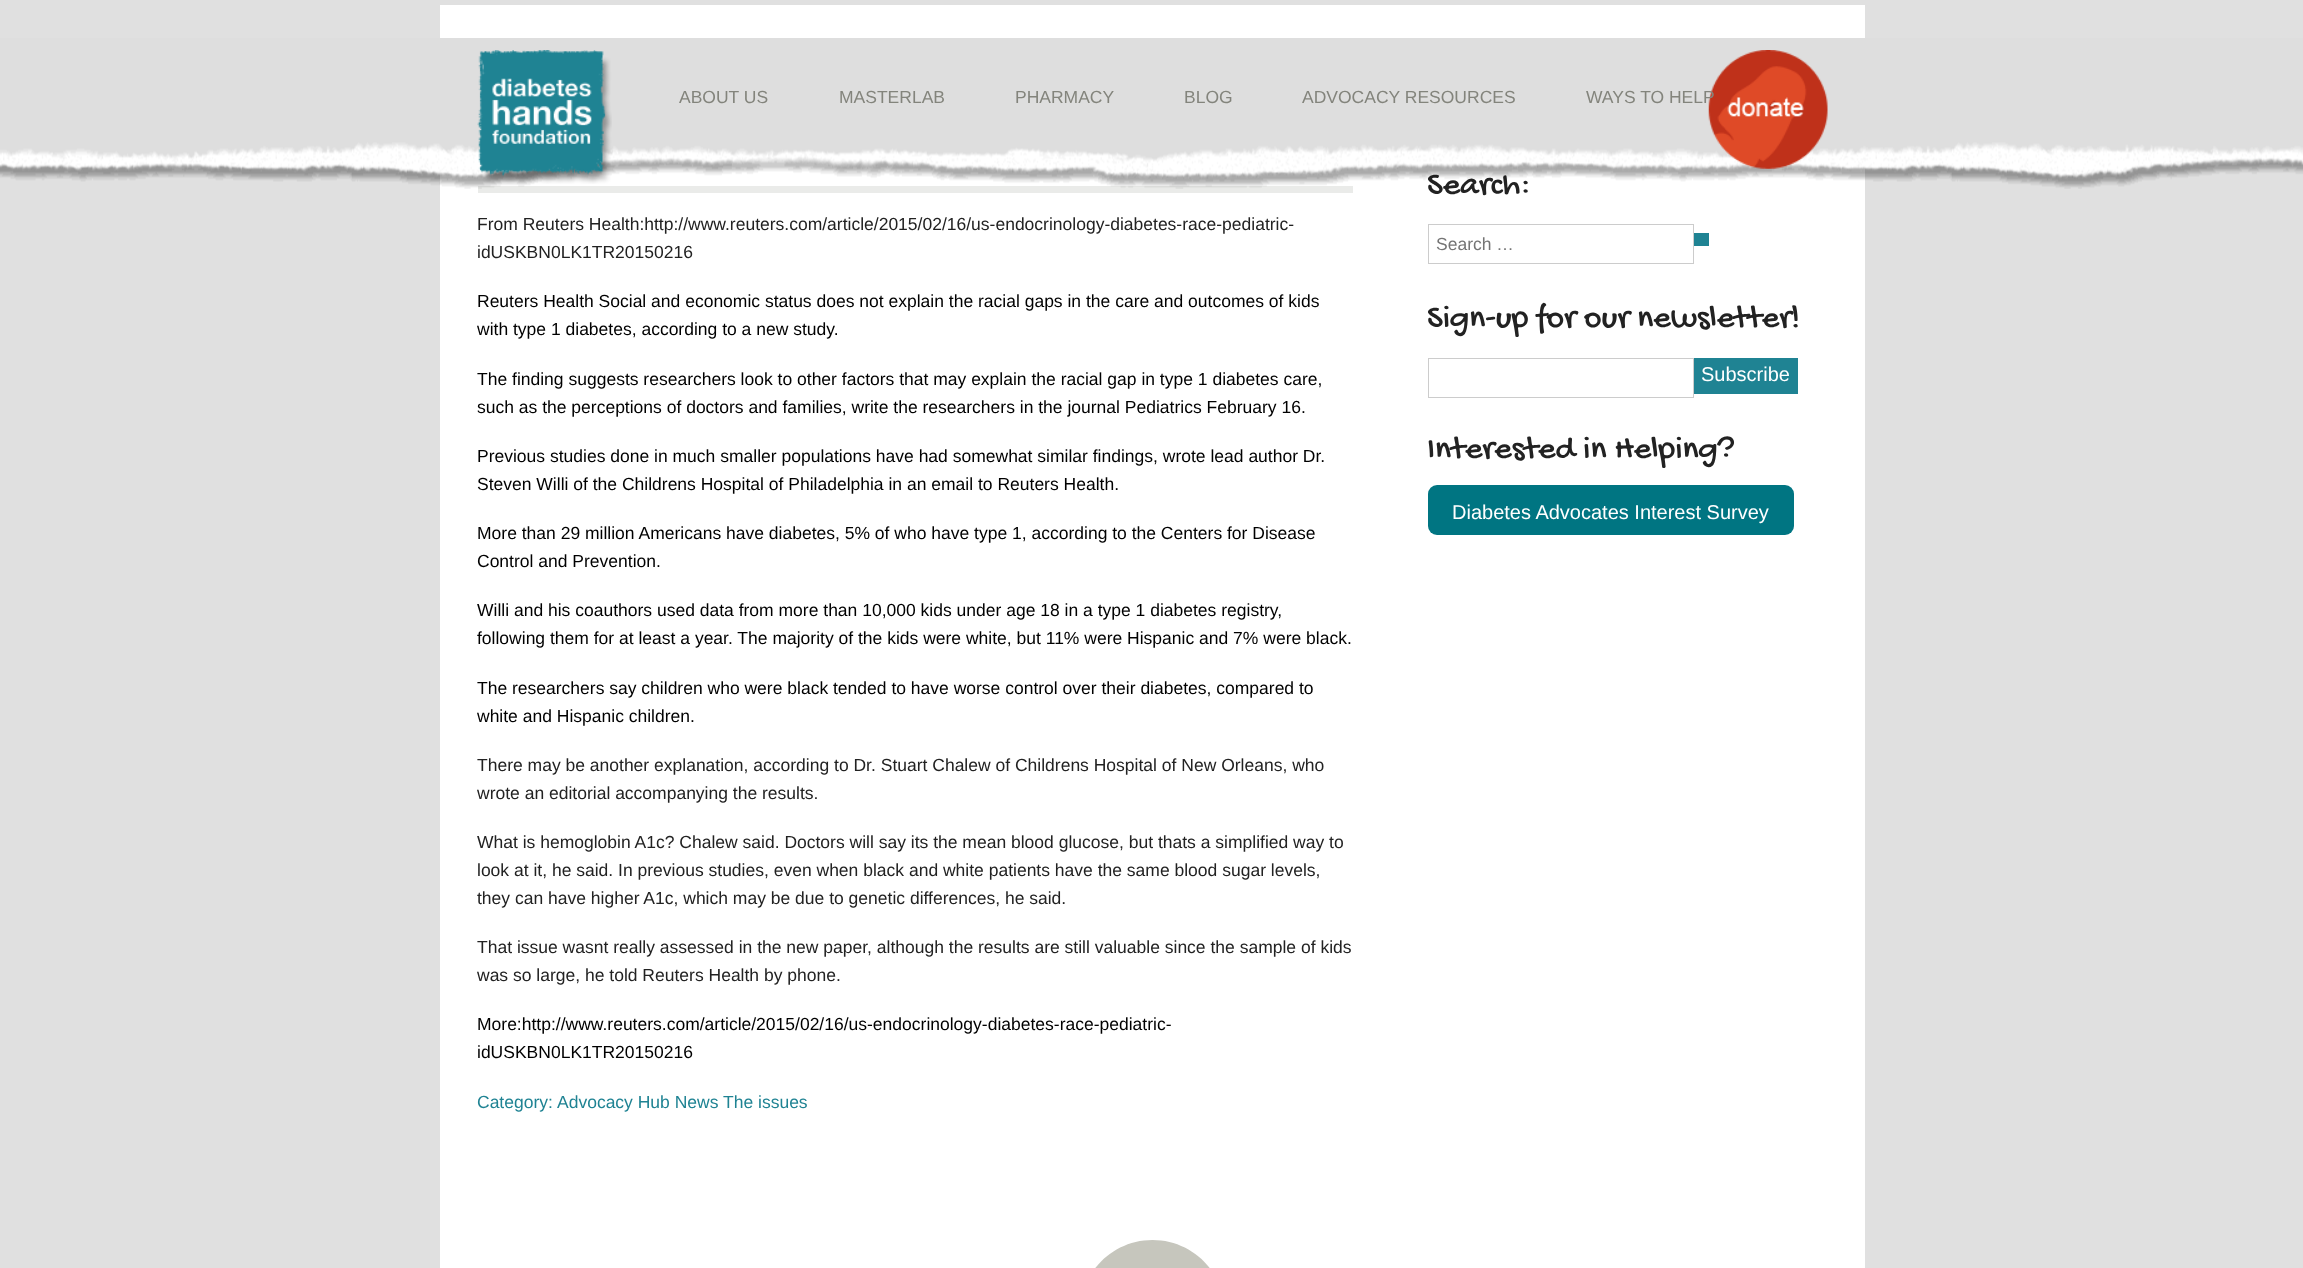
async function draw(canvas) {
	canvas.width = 2303;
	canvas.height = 1268;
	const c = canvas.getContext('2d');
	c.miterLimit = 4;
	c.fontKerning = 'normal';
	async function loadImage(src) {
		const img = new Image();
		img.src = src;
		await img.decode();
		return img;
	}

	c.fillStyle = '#e0e0e0';
	c.fillRect(0, 0, 2303, 1268);
	c.fillStyle = '#fff';
	c.fillRect(440, 5, 1425, 1263);
	c.fillStyle = '#eaebe9';
	c.fillRect(478, 186, 875, 7);
	c.font = '33.75px Gochi Hand';
	c.fillStyle = '#222';
	c.fillText('Search:', 1427, 193);
	c.drawImage(await loadImage('img1.png'), 0, 38, 2303, 151);
	c.drawImage(await loadImage('img2.png'), 477, 50, 135, 134);
	c.font = '17.5px Liberation Sans';
	c.fillStyle = '#83847c';
	for (const [text, x, y] of [
		['ABOUT US', 679, 103],
		['MASTERLAB', 839, 103],
		['PHARMACY', 1015, 103],
		['BLOG', 1184, 103],
		['ADVOCACY RESOURCES', 1302, 103],
	]) {
		c.fillText(text, x, y);
	}
	c.drawImage(await loadImage('img3.png'), 1708, 50, 120, 119);
	c.fillText('WAYS TO HELP', 1586, 103);
	c.fillStyle = '#222';
	c.fillText('From Reuters Health:http://www.reuters.com/article/2015/02/16/us-endocrinology-diabetes-race-pediatric-', 477, 230);
	c.fillText('idUSKBN0LK1TR20150216', 477, 258);
	c.fillStyle = '#000';
	for (const [text, x, y] of [
		['Reuters Health Social and economic status does not explain the racial gaps in the care and outcomes of kids', 477, 307],
		['with type 1 diabetes, according to a new study.', 477, 335],
		['The finding suggests researchers look to other factors that may explain the racial gap in type 1 diabetes care,', 477, 385],
		['such as the perceptions of doctors and families, write the researchers in the journal Pediatrics February 16.', 477, 413],
		['Previous studies done in much smaller populations have had somewhat similar findings, wrote lead author Dr.', 477, 462],
		['Steven Willi of the Childrens Hospital of Philadelphia in an email to Reuters Health.', 477, 490],
		['More than 29 million Americans have diabetes, 5% of who have type 1, according to the Centers for Disease', 477, 539],
		['Control and Prevention.', 477, 567],
		['Willi and his coauthors used data from more than 10,000 kids under age 18 in a type 1 diabetes registry,', 477, 616],
		['following them for at least a year. The majority of the kids were white, but 11% were Hispanic and 7% were black.', 477, 644],
		['The researchers say children who were black tended to have worse control over their diabetes, compared to', 477, 694],
		['white and Hispanic children.', 477, 722],
	]) {
		c.fillText(text, x, y);
	}
	c.fillStyle = '#222';
	for (const [text, x, y] of [
		['There may be another explanation, according to Dr. Stuart Chalew of Childrens Hospital of New Orleans, who', 477, 771],
		['wrote an editorial accompanying the results.', 477, 799],
		['What is hemoglobin A1c? Chalew said. Doctors will say its the mean blood glucose, but thats a simplified way to', 477, 848],
		['look at it, he said. In previous studies, even when black and white patients have the same blood sugar levels,', 477, 876],
		['they can have higher A1c, which may be due to genetic differences, he said.', 477, 904],
		['That issue wasnt really assessed in the new paper, although the results are still valuable since the sample of kids', 477, 953],
		['was so large, he told Reuters Health by phone.', 477, 981],
	]) {
		c.fillText(text, x, y);
	}
	c.fillStyle = '#000';
	c.fillText('More:http://www.reuters.com/article/2015/02/16/us-endocrinology-diabetes-race-pediatric-', 477, 1030);
	c.fillText('idUSKBN0LK1TR20150216', 477, 1058);
	c.fillStyle = '#1f8393';
	for (const [text, x, y] of [
		['Category:', 477, 1108],
		['Advocacy Hub News', 557, 1108],
		['The issues', 723, 1108],
	]) {
		c.fillText(text, x, y);
	}
	c.strokeStyle = '#ccc';
	c.strokeRect(1428.5, 224.5, 265, 39);
	c.fillStyle = '#757575';
	c.fillText('Search …', 1436, 250);
	c.fillStyle = '#1f8393';
	c.fillRect(1694, 233, 15, 13);
	c.font = '33.75px Gochi Hand';
	c.fillStyle = '#222';
	c.fillText('Sign-up for our newsletter!', 1427, 326);
	c.strokeRect(1428.5, 358.5, 265, 39);
	c.fillStyle = '#1f8393';
	c.fillRect(1694, 358, 104, 36);
	c.font = '20px Liberation Sans';
	c.fillStyle = '#fff';
	c.fillText('Subscribe', 1701, 381);
	c.font = '33.75px Gochi Hand';
	c.fillStyle = '#222';
	c.fillText('Interested in Helping?', 1427, 457);
	c.fillStyle = '#007582';
	c.beginPath();
	c.roundRect(1428, 485, 366, 50, 9);
	c.fill();
	c.font = '20px Liberation Sans';
	c.fillStyle = '#fff';
	c.fillText('Diabetes Advocates Interest Survey', 1452, 519);
	c.fillStyle = '#c6c6bd';
	c.beginPath();
	c.moveTo(1152.5, 1240);
	c.bezierCurveTo(1192.5, 1240, 1225, 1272.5, 1225, 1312.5);
	c.lineTo(1225, 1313);
	c.lineTo(1080, 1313);
	c.lineTo(1080, 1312.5);
	c.bezierCurveTo(1080, 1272.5, 1112.5, 1240, 1152.5, 1240);
	c.closePath();
	c.fill();
}

draw(document.querySelector('canvas'));
